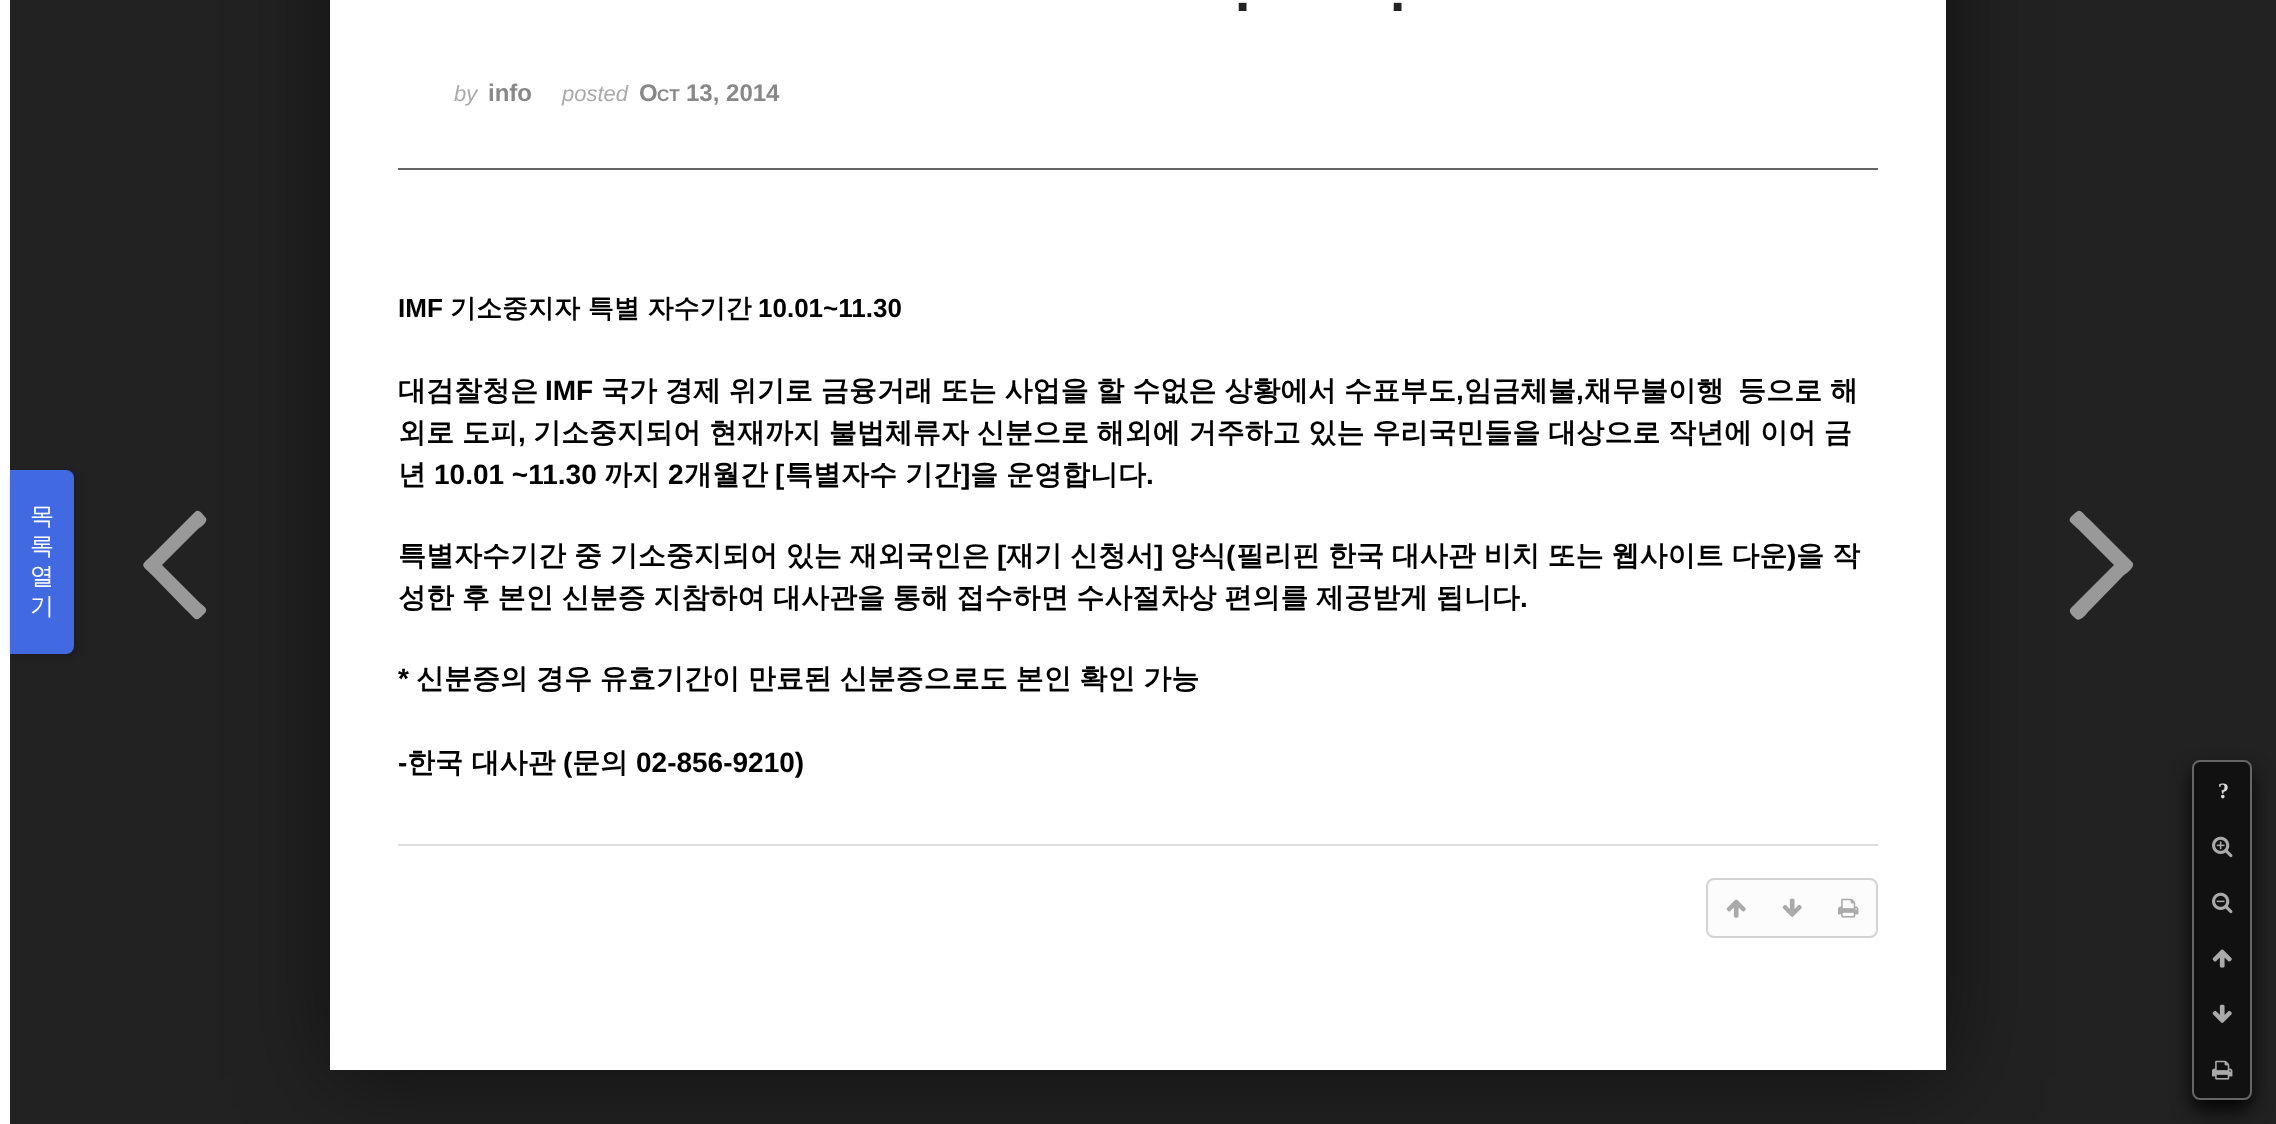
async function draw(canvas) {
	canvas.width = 2276;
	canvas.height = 1124;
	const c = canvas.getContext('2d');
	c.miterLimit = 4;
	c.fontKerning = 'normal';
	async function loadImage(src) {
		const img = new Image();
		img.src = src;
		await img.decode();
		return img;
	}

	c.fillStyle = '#222';
	c.fillRect(0, 0, 2276, 1124);
	c.fillStyle = '#00000080';
	c.filter = 'blur(48px)';
	c.beginPath();
	c.rect(330, -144, 1616, 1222);
	c.fill();
	c.filter = 'none';
	c.fillStyle = '#fff';
	c.fillRect(330, 0, 1616, 1070);
	c.fillRect(0, 0, 10, 1124);
	c.fillStyle = '#00000033';
	c.filter = 'blur(3px)';
	c.beginPath();
	c.roundRect(12, 472, 64, 184, 8);
	c.fill();
	c.filter = 'none';
	c.fillStyle = '#4169e1';
	c.beginPath();
	c.roundRect(10, 470, 64, 184, [0, 8, 8, 0]);
	c.fill();
	c.font = '500 24px WenQuanYi Zen Hei';
	c.fillStyle = '#fff';
	for (const [text, x, y] of [
		['목', 30, 524],
		['록', 30, 554],
		['열', 30, 584],
		['기', 30, 614],
	]) {
		c.fillText(text, x, y);
	}
	c.fillStyle = '#666';
	c.fillRect(398, 168, 1480, 2);
	c.letterSpacing = '-2px';
	c.font = 'bold 55px Liberation Sans';
	c.fillStyle = '#222';
	c.fillText('.', 1235, 11);
	c.fillText('.', 1390, 11);
	c.letterSpacing = '0px';
	c.font = 'italic 22px Liberation Sans';
	c.fillStyle = '#aaa';
	c.fillText('by', 454, 101);
	c.font = 'bold 24px Liberation Sans';
	c.fillStyle = '#888';
	c.fillText('info', 488, 101);
	c.font = 'italic 22px Liberation Sans';
	c.fillStyle = '#aaa';
	c.fillText('posted', 562, 101);
	c.font = 'bold 24px Liberation Sans';
	c.fillStyle = '#888';
	c.fillText('O', 639, 101);
	c.font = 'bold 17px Liberation Sans';
	c.fillText('CT', 657, 101);
	c.font = 'bold 24px Liberation Sans';
	c.fillText('13, 2014', 686, 101);
	c.fillStyle = '#000000e6';
	c.filter = 'blur(10px)';
	c.beginPath();
	c.roundRect(2192, 770, 60, 340, 8);
	c.fill();
	c.filter = 'none';
	c.fillStyle = '#111';
	c.beginPath();
	c.roundRect(2193, 761, 58, 338, 7);
	c.fill();
	c.strokeStyle = '#666';
	c.lineWidth = 2;
	c.stroke();
	c.letterSpacing = '-2px';
	c.font = 'bold 22px Liberation Serif';
	c.fillStyle = '#ddd';
	c.fillText('?', 2218, 798);
	c.drawImage(await loadImage('img1.png'), 2212, 836, 21, 22);
	c.drawImage(await loadImage('img2.png'), 2212, 892, 21, 22);
	c.drawImage(await loadImage('img3.png'), 2212, 949, 20, 19);
	c.drawImage(await loadImage('img4.png'), 2212, 1004, 20, 19);
	c.drawImage(await loadImage('img5.png'), 2212, 1060, 21, 20);
	c.letterSpacing = '0px';
	c.font = 'bold 26px Liberation Sans';
	c.fillStyle = '#000';
	c.fillText('IMF', 398, 317);
	c.font = 'bold 26px WenQuanYi Zen Hei';
	c.fillText('기소중지자 특별 자수기간', 450, 317);
	c.font = 'bold 26px Liberation Sans';
	c.fillText('10.01~11.30', 758, 317);
	c.font = 'bold 28px WenQuanYi Zen Hei';
	c.fillText('대검찰청은', 398, 400);
	c.font = 'bold 28px Liberation Sans';
	c.fillText('IMF', 545, 400);
	c.wordSpacing = '-0.5px';
	c.font = 'bold 28px WenQuanYi Zen Hei';
	c.fillText('국가 경제 위기로 금융거래 또는 사업을 할 수없은 상황에서 수표부도', 601, 400);
	c.wordSpacing = '0px';
	c.font = 'bold 28px Liberation Sans';
	c.fillText(',', 1456, 400);
	c.font = 'bold 28px WenQuanYi Zen Hei';
	c.fillText('임금체불', 1464, 400);
	c.font = 'bold 28px Liberation Sans';
	c.fillText(',', 1576, 400);
	c.font = 'bold 28px WenQuanYi Zen Hei';
	c.fillText('채무불이행', 1584, 400);
	c.wordSpacing = '-0.5px';
	c.fillText('등으로 해', 1738, 400);
	c.fillText('외로 도피', 398, 442);
	c.wordSpacing = '0px';
	c.font = 'bold 28px Liberation Sans';
	c.fillText(',', 518, 442);
	c.wordSpacing = '-0.5px';
	c.font = 'bold 28px WenQuanYi Zen Hei';
	c.fillText('기소중지되어 현재까지 불법체류자 신분으로 해외에 거주하고 있는 우리국민들을 대상으로 작년에 이어 금', 533, 442);
	c.wordSpacing = '0px';
	c.fillText('년', 398, 484);
	c.font = 'bold 28px Liberation Sans';
	c.fillText('10.01 ~11.30', 434, 484);
	c.font = 'bold 28px WenQuanYi Zen Hei';
	c.fillText('까지', 604, 484);
	c.font = 'bold 28px Liberation Sans';
	c.fillText('2', 668, 484);
	c.font = 'bold 28px WenQuanYi Zen Hei';
	c.fillText('개월간', 684, 484);
	c.font = 'bold 28px Liberation Sans';
	c.fillText('[', 775, 484);
	c.font = 'bold 28px WenQuanYi Zen Hei';
	c.fillText('특별자수', 785, 484);
	c.fillText('기간', 905, 484);
	c.font = 'bold 28px Liberation Sans';
	c.fillText(']', 961, 484);
	c.font = 'bold 28px WenQuanYi Zen Hei';
	c.fillText('을', 970, 484);
	c.fillText('운영합니다', 1006, 484);
	c.font = 'bold 28px Liberation Sans';
	c.fillText('.', 1146, 484);
	c.wordSpacing = '-0.5px';
	c.font = 'bold 28px WenQuanYi Zen Hei';
	c.fillText('특별자수기간 중 기소중지되어 있는 재외국인은', 398, 565);
	c.wordSpacing = '0px';
	c.font = 'bold 28px Liberation Sans';
	c.fillText('[', 997, 565);
	c.wordSpacing = '-0.5px';
	c.font = 'bold 28px WenQuanYi Zen Hei';
	c.fillText('재기 신청서', 1006, 565);
	c.wordSpacing = '0px';
	c.font = 'bold 28px Liberation Sans';
	c.fillText(']', 1154, 565);
	c.font = 'bold 28px WenQuanYi Zen Hei';
	c.fillText('양식', 1170, 565);
	c.font = 'bold 28px Liberation Sans';
	c.fillText('(', 1226, 565);
	c.wordSpacing = '-0.5px';
	c.font = 'bold 28px WenQuanYi Zen Hei';
	c.fillText('필리핀 한국 대사관 비치 또는 웹사이트 다운', 1236, 565);
	c.wordSpacing = '0px';
	c.font = 'bold 28px Liberation Sans';
	c.fillText(')', 1787, 565);
	c.wordSpacing = '-0.5px';
	c.font = 'bold 28px WenQuanYi Zen Hei';
	c.fillText('을 작', 1796, 565);
	c.wordSpacing = '-0.6px';
	c.fillText('성한 후 본인 신분증 지참하여 대사관을 통해 접수하면 수사절차상 편의를 제공받게 됩니다', 398, 607);
	c.wordSpacing = '0px';
	c.font = 'bold 28px Liberation Sans';
	c.fillText('.', 1520, 607);
	c.fillText('*', 398, 688);
	c.wordSpacing = '-0.5px';
	c.font = 'bold 28px WenQuanYi Zen Hei';
	c.fillText('신분증의 경우 유효기간이 만료된 신분증으로도 본인 확인 가능', 416, 688);
	c.wordSpacing = '0px';
	c.font = 'bold 28px Liberation Sans';
	c.fillText('-', 398, 772);
	c.font = 'bold 28px WenQuanYi Zen Hei';
	c.fillText('한국 대사관', 407, 772);
	c.font = 'bold 28px Liberation Sans';
	c.fillText('(', 563, 772);
	c.font = 'bold 28px WenQuanYi Zen Hei';
	c.fillText('문의', 572, 772);
	c.font = 'bold 28px Liberation Sans';
	c.fillText('02-856-9210)', 636, 772);
	c.fillStyle = '#999';
	c.beginPath();
	c.moveTo(205, 517);
	c.bezierCurveTo(210, 521, 200, 528, 198, 529);
	c.lineTo(162, 565);
	c.lineTo(198, 601);
	c.bezierCurveTo(203, 606, 210, 609, 204, 614);
	c.bezierCurveTo(195, 623, 197, 620, 186, 610);
	c.lineTo(153, 576);
	c.bezierCurveTo(140, 563, 140, 567, 153, 554);
	c.lineTo(195, 512);
	c.bezierCurveTo(199, 508, 203, 515, 205, 517);
	c.closePath();
	c.fill();
	c.beginPath();
	c.moveTo(2132, 562);
	c.bezierCurveTo(2137, 567, 2124, 575, 2123, 576);
	c.lineTo(2090, 610);
	c.bezierCurveTo(2089, 610, 2081, 623, 2076, 619);
	c.bezierCurveTo(2074, 617, 2067, 612, 2071, 608);
	c.lineTo(2114, 565);
	c.lineTo(2078, 529);
	c.bezierCurveTo(2071, 522, 2066, 521, 2073, 515);
	c.bezierCurveTo(2081, 507, 2080, 511, 2090, 520);
	c.closePath();
	c.fill();
	c.fillStyle = '#ddd';
	c.fillRect(398, 844, 1480, 2);
	c.fillStyle = '#fcfcfc';
	c.beginPath();
	c.roundRect(1707, 879, 170, 58, 7);
	c.fill();
	c.strokeStyle = '#d3d3d3';
	c.stroke();
	c.drawImage(await loadImage('img6.png'), 1726, 899, 20, 19);
	c.drawImage(await loadImage('img7.png'), 1782, 898, 20, 19);
	c.drawImage(await loadImage('img8.png'), 1838, 898, 21, 20);
}

draw(document.querySelector('canvas'));
